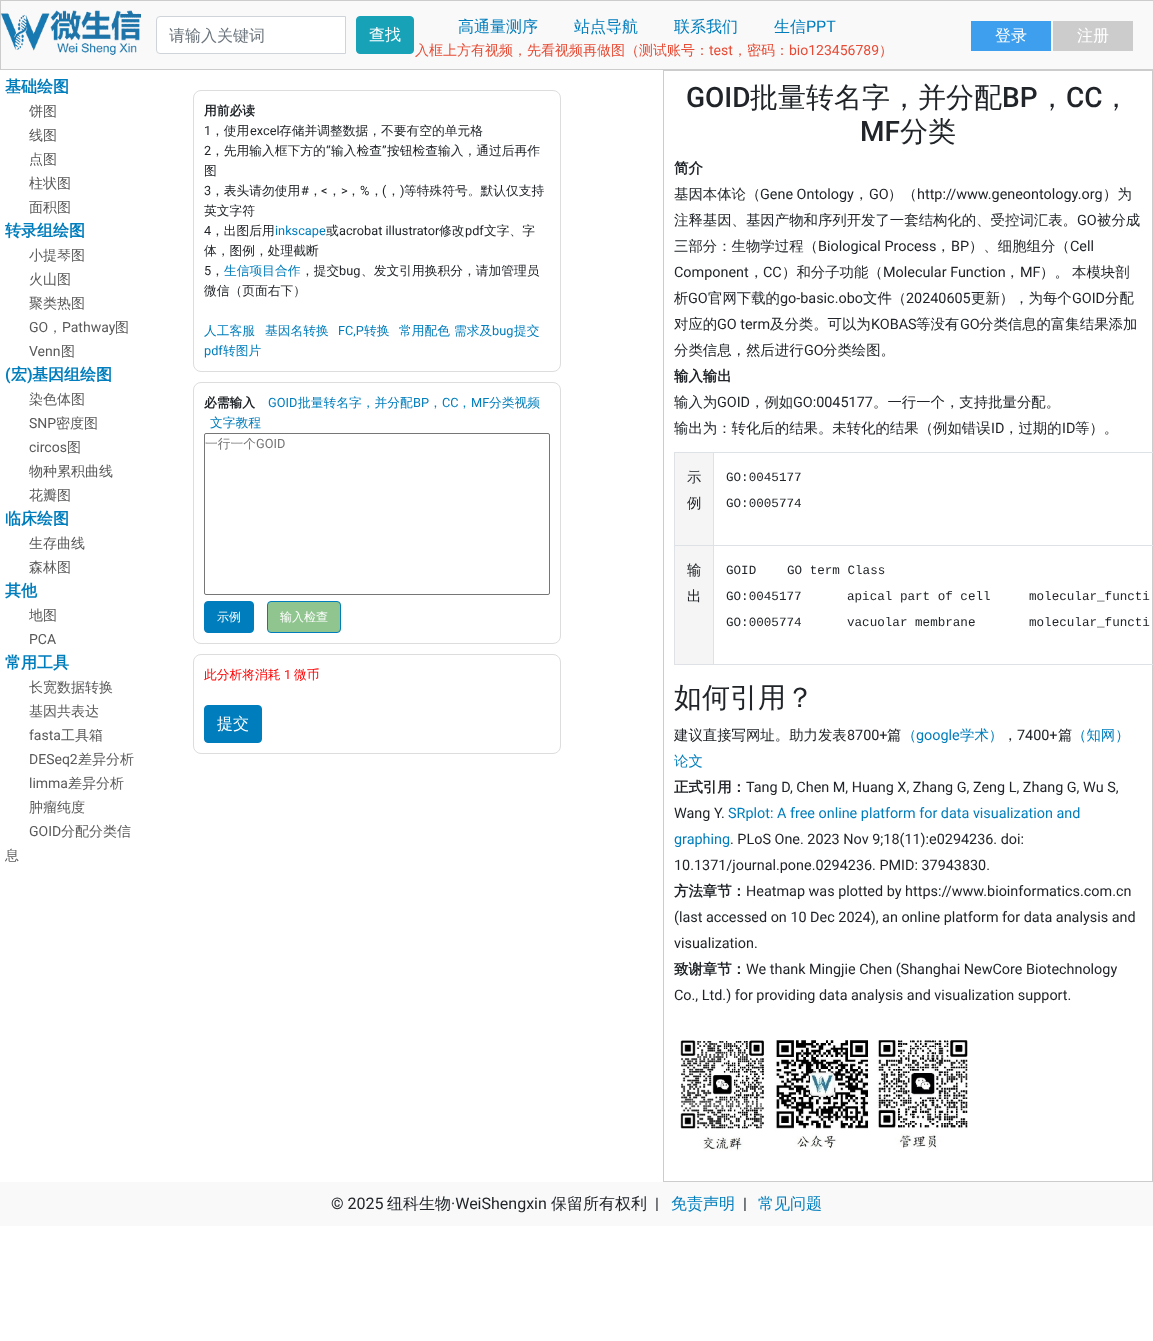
async function draw(canvas) {
	canvas.width = 1153;
	canvas.height = 1341;
	const c = canvas.getContext('2d');
	c.miterLimit = 4;
	c.fontKerning = 'normal';
	async function loadImage(src) {
		const img = new Image();
		img.src = src;
		await img.decode();
		return img;
	}

	c.fillStyle = '#fff';
	c.fillRect(0, 0, 1153, 1341);
	for (const [x, y, w, h, color] of [
		[1, 1, 1152, 68, '#f9f9f9'],
		[0, 0, 1153, 1, '#ccc'],
		[0, 69, 1153, 1, '#ccc'],
		[0, 0, 1, 70, '#ccc'],
	]) {
		c.fillStyle = color;
		c.fillRect(x, y, w, h);
	}
	c.drawImage(await loadImage('img1.png'), 1, 10, 140, 45);
	c.fillStyle = '#fff';
	c.beginPath();
	c.roundRect(156.5, 16.5, 189, 37, [3.5, 0, 0, 3.5]);
	c.fill();
	c.strokeStyle = '#ced4da';
	c.stroke();
	c.font = '500 16px WenQuanYi Zen Hei';
	c.fillStyle = '#6c757d';
	c.fillText('请输入关键词', 169, 41);
	c.fillStyle = '#17a2b8';
	c.beginPath();
	c.roundRect(356.5, 16.5, 57, 37, 3.5);
	c.fill();
	c.strokeStyle = '#17a2b8';
	c.stroke();
	c.fillStyle = '#fff';
	c.fillText('查找', 369, 40);
	c.fillStyle = '#007dbc';
	for (const [text, x, y] of [
		['高通量测序', 458, 32],
		['站点导航', 574, 32],
		['联系我们', 674, 32],
		['生信', 774, 32],
	]) {
		c.fillText(text, x, y);
	}
	c.font = '16px Roboto';
	c.fillText('PPT', 806, 32);
	c.fillStyle = '#3e9fee';
	c.fillRect(971, 21, 80, 30);
	c.font = '500 16px WenQuanYi Zen Hei';
	c.fillStyle = '#fff';
	c.fillText('登录', 995, 41);
	c.fillStyle = '#ccc';
	c.fillRect(1053, 21, 80, 30);
	c.fillStyle = '#fff';
	c.fillText('注册', 1077, 41);
	c.font = '500 14px WenQuanYi Zen Hei';
	c.fillStyle = '#e64b35';
	c.fillText('入框上方有视频，先看视频再做图（测试账号：', 415, 55);
	c.font = '14px Roboto';
	c.fillText('test', 709, 55);
	c.font = '500 14px WenQuanYi Zen Hei';
	c.fillText('，密码：', 733, 55);
	c.font = '14px Roboto';
	c.fillText('bio123456789', 789, 55);
	c.font = '500 14px WenQuanYi Zen Hei';
	c.fillText('）', 879, 55);
	c.font = 'bold 16px WenQuanYi Zen Hei';
	c.fillStyle = '#007dbc';
	c.fillText('基础绘图', 5, 92);
	c.font = '500 14px WenQuanYi Zen Hei';
	c.fillStyle = '#595959';
	for (const [text, x, y] of [
		['饼图', 29, 116],
		['线图', 29, 140],
		['点图', 29, 164],
		['柱状图', 29, 188],
		['面积图', 29, 212],
	]) {
		c.fillText(text, x, y);
	}
	c.font = 'bold 16px WenQuanYi Zen Hei';
	c.fillStyle = '#007dbc';
	c.fillText('转录组绘图', 5, 236);
	c.font = '500 14px WenQuanYi Zen Hei';
	c.fillStyle = '#595959';
	for (const [text, x, y] of [
		['小提琴图', 29, 260],
		['火山图', 29, 284],
		['聚类热图', 29, 308],
	]) {
		c.fillText(text, x, y);
	}
	c.font = '14px Roboto';
	c.fillText('GO', 29, 332);
	c.font = '500 14px WenQuanYi Zen Hei';
	c.fillText('，', 48, 332);
	c.font = '14px Roboto';
	c.fillText('Pathway', 62, 332);
	c.font = '500 14px WenQuanYi Zen Hei';
	c.fillText('图', 115, 332);
	c.font = '14px Roboto';
	c.fillText('Venn', 29, 356);
	c.font = '500 14px WenQuanYi Zen Hei';
	c.fillText('图', 61, 356);
	c.font = 'bold 16px Roboto';
	c.fillStyle = '#007dbc';
	c.fillText('(', 5, 380);
	c.font = 'bold 16px WenQuanYi Zen Hei';
	c.fillText('宏', 11, 380);
	c.font = 'bold 16px Roboto';
	c.fillText(')', 27, 380);
	c.font = 'bold 16px WenQuanYi Zen Hei';
	c.fillText('基因组绘图', 32, 380);
	c.font = '500 14px WenQuanYi Zen Hei';
	c.fillStyle = '#595959';
	c.fillText('染色体图', 29, 404);
	c.font = '14px Roboto';
	c.fillText('SNP', 29, 428);
	c.font = '500 14px WenQuanYi Zen Hei';
	c.fillText('密度图', 56, 428);
	c.font = '14px Roboto';
	c.fillText('circos', 29, 452);
	c.font = '500 14px WenQuanYi Zen Hei';
	for (const [text, x, y] of [
		['图', 67, 452],
		['物种累积曲线', 29, 476],
		['花瓣图', 29, 500],
	]) {
		c.fillText(text, x, y);
	}
	c.font = 'bold 16px WenQuanYi Zen Hei';
	c.fillStyle = '#007dbc';
	c.fillText('临床绘图', 5, 524);
	c.font = '500 14px WenQuanYi Zen Hei';
	c.fillStyle = '#595959';
	c.fillText('生存曲线', 29, 548);
	c.fillText('森林图', 29, 572);
	c.font = 'bold 16px WenQuanYi Zen Hei';
	c.fillStyle = '#007dbc';
	c.fillText('其他', 5, 596);
	c.font = '500 14px WenQuanYi Zen Hei';
	c.fillStyle = '#595959';
	c.fillText('地图', 29, 620);
	c.font = '14px Roboto';
	c.fillText('PCA', 29, 644);
	c.font = 'bold 16px WenQuanYi Zen Hei';
	c.fillStyle = '#007dbc';
	c.fillText('常用工具', 5, 668);
	c.font = '500 14px WenQuanYi Zen Hei';
	c.fillStyle = '#595959';
	c.fillText('长宽数据转换', 29, 692);
	c.fillText('基因共表达', 29, 716);
	c.font = '14px Roboto';
	c.fillText('fasta', 29, 740);
	c.font = '500 14px WenQuanYi Zen Hei';
	c.fillText('工具箱', 61, 740);
	c.font = '14px Roboto';
	c.fillText('DESeq2', 29, 764);
	c.font = '500 14px WenQuanYi Zen Hei';
	c.fillText('差异分析', 78, 764);
	c.font = '14px Roboto';
	c.fillText('limma', 29, 788);
	c.font = '500 14px WenQuanYi Zen Hei';
	c.fillText('差异分析', 68, 788);
	c.fillText('肿瘤纯度', 29, 812);
	c.font = '14px Roboto';
	c.fillText('GOID', 29, 836);
	c.font = '500 14px WenQuanYi Zen Hei';
	c.fillText('分配分类信', 61, 836);
	c.fillText('息', 5, 860);
	c.beginPath();
	c.roundRect(193.5, 90.5, 367, 281, 7.5);
	c.strokeStyle = '#ddd';
	c.stroke();
	c.font = 'bold 12.75px WenQuanYi Zen Hei';
	c.fillStyle = '#212529';
	c.fillText('用前必读', 204, 115);
	c.font = '12.75px Roboto';
	c.fillText('1', 204, 135);
	c.font = '500 12.75px WenQuanYi Zen Hei';
	c.fillText('，使用', 211, 135);
	c.font = '12.75px Roboto';
	c.fillText('excel', 250, 135);
	c.font = '500 12.75px WenQuanYi Zen Hei';
	c.fillText('存储并调整数据，不要有空的单元格', 279, 135);
	c.font = '12.75px Roboto';
	c.fillText('2', 204, 155);
	c.font = '500 12.75px WenQuanYi Zen Hei';
	c.fillText('，先用输入框下方的', 211, 155);
	c.font = '12.75px Roboto';
	c.fillText('“', 326, 155);
	c.font = '500 12.75px WenQuanYi Zen Hei';
	c.fillText('输入检查', 331, 155);
	c.font = '12.75px Roboto';
	c.fillText('”', 382, 155);
	c.font = '500 12.75px WenQuanYi Zen Hei';
	c.fillText('按钮检查输入，通过后再作', 387, 155);
	c.fillText('图', 204, 175);
	c.font = '12.75px Roboto';
	c.fillText('3', 204, 195);
	c.font = '500 12.75px WenQuanYi Zen Hei';
	c.fillText('，表头请勿使用', 211, 195);
	c.font = '12.75px Roboto';
	for (const [text, x, y] of [
		['#', 301, 195],
		['<', 321, 195],
		['>', 341, 195],
		['%', 360, 195],
		['(', 382, 195],
		[')', 400, 195],
	]) {
		c.fillText(text, x, y);
	}
	c.font = '500 12.75px WenQuanYi Zen Hei';
	for (const [text, x, y] of [
		['等特殊符号。默认仅支持', 404, 195],
		['，', 309, 195],
		['，', 328, 195],
		['，', 347, 195],
		['，', 370, 195],
		['，', 387, 195],
		['英文字符', 204, 215],
	]) {
		c.fillText(text, x, y);
	}
	c.font = '12.75px Roboto';
	c.fillText('4', 204, 235);
	c.font = '500 12.75px WenQuanYi Zen Hei';
	c.fillText('，出图后用', 211, 235);
	c.font = '12.75px Roboto';
	c.fillStyle = '#007dbc';
	c.fillText('inkscape', 275, 235);
	c.font = '500 12.75px WenQuanYi Zen Hei';
	c.fillStyle = '#212529';
	c.fillText('或', 326, 235);
	c.font = '12.75px Roboto';
	c.fillText('acrobat illustrator', 339, 235);
	c.font = '500 12.75px WenQuanYi Zen Hei';
	c.fillText('修改', 439, 235);
	c.font = '12.75px Roboto';
	c.fillText('pdf', 465, 235);
	c.font = '500 12.75px WenQuanYi Zen Hei';
	c.fillText('文字、字', 484, 235);
	c.fillText('体，图例，处理截断', 204, 255);
	c.font = '12.75px Roboto';
	c.fillText('5', 204, 275);
	c.font = '500 12.75px WenQuanYi Zen Hei';
	c.fillText('，', 211, 275);
	c.fillStyle = '#007dbc';
	c.fillText('生信项目合作', 224, 275);
	c.fillStyle = '#212529';
	c.fillText('，提交', 301, 275);
	c.font = '12.75px Roboto';
	c.fillText('bug', 339, 275);
	c.font = '500 12.75px WenQuanYi Zen Hei';
	c.fillText('、发文引用换积分，请加管理员', 361, 275);
	c.fillText('微信（页面右下）', 204, 295);
	c.fillStyle = '#007dbc';
	c.fillText('人工客服', 204, 335);
	c.fillText('基因名转换', 265, 335);
	c.font = '12.75px Roboto';
	c.fillText('FC,P', 338, 335);
	c.font = '500 12.75px WenQuanYi Zen Hei';
	for (const [text, x, y] of [
		['转换', 364, 335],
		['常用配色', 399, 335],
		['需求及', 454, 335],
	]) {
		c.fillText(text, x, y);
	}
	c.font = '12.75px Roboto';
	c.fillText('bug', 492, 335);
	c.font = '500 12.75px WenQuanYi Zen Hei';
	c.fillText('提交', 514, 335);
	c.font = '12.75px Roboto';
	c.fillText('pdf', 204, 355);
	c.font = '500 12.75px WenQuanYi Zen Hei';
	c.fillText('转图片', 223, 355);
	c.beginPath();
	c.roundRect(193.5, 382.5, 367, 261, 7.5);
	c.stroke();
	c.font = 'bold 12.75px WenQuanYi Zen Hei';
	c.fillStyle = '#212529';
	c.fillText('必需输入', 204, 407);
	c.font = '12.75px Roboto';
	c.fillStyle = '#007dbc';
	c.fillText('GOID', 268, 407);
	c.font = '500 12.75px WenQuanYi Zen Hei';
	c.fillText('批量转名字，并分配', 298, 407);
	c.font = '12.75px Roboto';
	c.fillText('BP', 413, 407);
	c.font = '500 12.75px WenQuanYi Zen Hei';
	c.fillText('，', 429, 407);
	c.font = '12.75px Roboto';
	c.fillText('CC', 442, 407);
	c.font = '500 12.75px WenQuanYi Zen Hei';
	c.fillText('，', 458, 407);
	c.font = '12.75px Roboto';
	c.fillText('MF', 471, 407);
	c.font = '500 12.75px WenQuanYi Zen Hei';
	c.fillText('分类视频', 489, 407);
	c.fillText('文字教程', 210, 427);
	c.beginPath();
	c.roundRect(204.5, 433.5, 345, 161, 1.5);
	c.strokeStyle = '#767676';
	c.stroke();
	c.fillStyle = '#757575';
	c.fillText('一行一个', 205, 448);
	c.font = '12.75px Roboto';
	c.fillText('GOID', 256, 448);
	c.fillStyle = '#007dbc';
	c.beginPath();
	c.roundRect(204.5, 601.5, 49, 31, 3.5);
	c.fill();
	c.strokeStyle = '#007dbc';
	c.stroke();
	c.font = '500 12px WenQuanYi Zen Hei';
	c.fillStyle = '#fff';
	c.fillText('示例', 217, 621);
	c.fillStyle = '#90c590';
	c.beginPath();
	c.roundRect(267.5, 601.5, 73, 31, 3.5);
	c.fill();
	c.stroke();
	c.fillStyle = '#fff';
	c.fillText('输入检查', 280, 621);
	c.beginPath();
	c.roundRect(193.5, 654.5, 367, 99, 7.5);
	c.strokeStyle = '#ddd';
	c.stroke();
	c.font = '500 12.75px WenQuanYi Zen Hei';
	c.fillStyle = '#f00';
	c.fillText('此分析将消耗', 204, 679);
	c.font = '12.75px Roboto';
	c.fillText('1', 284, 679);
	c.font = '500 12.75px WenQuanYi Zen Hei';
	c.fillText('微币', 294, 679);
	c.fillStyle = '#007dbc';
	c.beginPath();
	c.roundRect(204.5, 705.5, 57, 37, 3.5);
	c.fill();
	c.strokeStyle = '#007dbc';
	c.stroke();
	c.font = '500 16px WenQuanYi Zen Hei';
	c.fillStyle = '#fff';
	c.fillText('提交', 217, 729);
	c.strokeStyle = '#ccc';
	c.strokeRect(663.5, 70.5, 489, 1111);
	c.font = '500 28px Roboto';
	c.fillStyle = '#212529';
	c.fillText('GOID', 686, 107);
	c.font = '500 28px WenQuanYi Zen Hei';
	c.fillText('批量转名字，并分配', 750, 107);
	c.font = '500 28px Roboto';
	c.fillText('BP', 1002, 107);
	c.font = '500 28px WenQuanYi Zen Hei';
	c.fillText('，', 1038, 107);
	c.font = '500 28px Roboto';
	c.fillText('CC', 1066, 107);
	c.font = '500 28px WenQuanYi Zen Hei';
	c.fillText('，', 1102, 107);
	c.font = '500 28px Roboto';
	c.fillText('MF', 860, 141);
	c.font = '500 28px WenQuanYi Zen Hei';
	c.fillText('分类', 900, 141);
	c.font = 'bold 14.4px WenQuanYi Zen Hei';
	c.fillText('简介', 674, 173);
	c.font = '500 14.4px WenQuanYi Zen Hei';
	c.fillText('基因本体论（', 674, 199);
	c.font = '14.4px Roboto';
	c.fillText('Gene Ontology', 760, 199);
	c.font = '500 14.4px WenQuanYi Zen Hei';
	c.fillText('，', 854, 199);
	c.font = '14.4px Roboto';
	c.fillText('GO', 869, 199);
	c.font = '500 14.4px WenQuanYi Zen Hei';
	c.fillText('）（', 888, 199);
	c.font = '14.4px Roboto';
	c.fillText('http://www.geneontology.org', 917, 199);
	c.font = '500 14.4px WenQuanYi Zen Hei';
	c.fillText('）为', 1103, 199);
	c.fillText('注释基因、基因产物和序列开发了一套结构化的、受控词汇表。', 674, 225);
	c.font = '14.4px Roboto';
	c.fillText('GO', 1077, 225);
	c.font = '500 14.4px WenQuanYi Zen Hei';
	c.fillText('被分成', 1097, 225);
	c.fillText('三部分：生物学过程（', 674, 251);
	c.font = '14.4px Roboto';
	c.fillText('Biological Process', 818, 251);
	c.font = '500 14.4px WenQuanYi Zen Hei';
	c.fillText('，', 936, 251);
	c.font = '14.4px Roboto';
	c.fillText('BP', 951, 251);
	c.font = '500 14.4px WenQuanYi Zen Hei';
	c.fillText('）、细胞组分（', 969, 251);
	c.font = '14.4px Roboto';
	c.fillText('Cell', 1070, 251);
	c.fillText('Component', 674, 277);
	c.font = '500 14.4px WenQuanYi Zen Hei';
	c.fillText('，', 749, 277);
	c.font = '14.4px Roboto';
	c.fillText('CC', 763, 277);
	c.font = '500 14.4px WenQuanYi Zen Hei';
	c.fillText('）和分子功能（', 782, 277);
	c.font = '14.4px Roboto';
	c.fillText('Molecular Function', 883, 277);
	c.font = '500 14.4px WenQuanYi Zen Hei';
	c.fillText('，', 1005, 277);
	c.font = '14.4px Roboto';
	c.fillText('MF', 1020, 277);
	c.font = '500 14.4px WenQuanYi Zen Hei';
	for (const [text, x, y] of [
		['）。', 1040, 277],
		['本模块剖', 1072, 277],
		['析', 674, 303],
	]) {
		c.fillText(text, x, y);
	}
	c.font = '14.4px Roboto';
	c.fillText('GO', 688, 303);
	c.font = '500 14.4px WenQuanYi Zen Hei';
	c.fillText('官网下载的', 708, 303);
	c.font = '14.4px Roboto';
	c.fillText('go-basic.obo', 780, 303);
	c.font = '500 14.4px WenQuanYi Zen Hei';
	c.fillText('文件（', 863, 303);
	c.font = '14.4px Roboto';
	c.fillText('20240605', 906, 303);
	c.font = '500 14.4px WenQuanYi Zen Hei';
	c.fillText('更新），为每个', 971, 303);
	c.font = '14.4px Roboto';
	c.fillText('GOID', 1072, 303);
	c.font = '500 14.4px WenQuanYi Zen Hei';
	c.fillText('分配', 1105, 303);
	c.fillText('对应的', 674, 329);
	c.font = '14.4px Roboto';
	c.fillText('GO term', 717, 329);
	c.font = '500 14.4px WenQuanYi Zen Hei';
	c.fillText('及分类。可以为', 770, 329);
	c.font = '14.4px Roboto';
	c.fillText('KOBAS', 871, 329);
	c.font = '500 14.4px WenQuanYi Zen Hei';
	c.fillText('等没有', 916, 329);
	c.font = '14.4px Roboto';
	c.fillText('GO', 960, 329);
	c.font = '500 14.4px WenQuanYi Zen Hei';
	c.fillText('分类信息的富集结果添加', 979, 329);
	c.fillText('分类信息，然后进行', 674, 355);
	c.font = '14.4px Roboto';
	c.fillText('GO', 804, 355);
	c.font = '500 14.4px WenQuanYi Zen Hei';
	c.fillText('分类绘图。', 823, 355);
	c.font = 'bold 14.4px WenQuanYi Zen Hei';
	c.fillText('输入输出', 674, 381);
	c.font = '500 14.4px WenQuanYi Zen Hei';
	c.fillText('输入为', 674, 407);
	c.font = '14.4px Roboto';
	c.fillText('GOID', 717, 407);
	c.font = '500 14.4px WenQuanYi Zen Hei';
	c.fillText('，例如', 750, 407);
	c.font = '14.4px Roboto';
	c.fillText('GO:0045177', 793, 407);
	c.font = '500 14.4px WenQuanYi Zen Hei';
	c.fillText('。一行一个，支持批量分配。', 873, 407);
	c.fillText('输出为：转化后的结果。未转化的结果（例如错误', 674, 433);
	c.font = '14.4px Roboto';
	c.fillText('ID', 991, 433);
	c.font = '500 14.4px WenQuanYi Zen Hei';
	c.fillText('，过期的', 1004, 433);
	c.font = '14.4px Roboto';
	c.fillText('ID', 1062, 433);
	c.font = '500 14.4px WenQuanYi Zen Hei';
	c.fillText('等）。', 1075, 433);
	for (const [x, y, w, h, color] of [
		[674, 452, 479, 1, '#dee2e6'],
		[674, 664, 479, 1, '#dee2e6'],
		[674, 452, 1, 213, '#dee2e6'],
		[675, 453, 38, 92, '#f5f5f5'],
	]) {
		c.fillStyle = color;
		c.fillRect(x, y, w, h);
	}
	c.fillStyle = '#212529';
	c.fillText('示', 687, 482);
	c.fillText('例', 687, 508);
	for (const [x, y, w, h, color] of [
		[713, 545, 440, 1, '#dee2e6'],
		[713, 545, 1, 120, '#dee2e6'],
		[674, 545, 40, 1, '#dee2e6'],
		[713, 452, 1, 94, '#dee2e6'],
	]) {
		c.fillStyle = color;
		c.fillRect(x, y, w, h);
	}
	c.font = '12.6px Liberation Mono';
	c.fillStyle = '#212529';
	c.fillText('GO:0045177', 726, 481);
	c.fillText('GO:0005774', 726, 507);
	c.fillStyle = '#f5f5f5';
	c.fillRect(675, 546, 38, 118);
	c.font = '500 14.4px WenQuanYi Zen Hei';
	c.fillStyle = '#212529';
	c.fillText('输', 687, 575);
	c.fillText('出', 687, 601);
	c.font = '12.6px Liberation Mono';
	for (const [text, x, y] of [
		['GOID', 726, 574],
		['GO term Class', 787, 574],
		['GO:0045177', 726, 600],
		['apical part of cell', 847, 600],
		['molecular_functi', 1029, 600],
		['GO:0005774', 726, 626],
		['vacuolar membrane', 847, 626],
		['molecular_functi', 1029, 626],
	]) {
		c.fillText(text, x, y);
	}
	c.font = '500 28px WenQuanYi Zen Hei';
	c.fillText('如何引用？', 674, 707);
	c.font = '500 14.4px WenQuanYi Zen Hei';
	c.fillText('建议直接写网址。助力发表', 674, 740);
	c.font = '14.4px Roboto';
	c.fillText('8700+', 847, 740);
	c.font = '500 14.4px WenQuanYi Zen Hei';
	c.fillText('篇', 887, 740);
	c.fillStyle = '#007dbc';
	c.fillText('（', 902, 740);
	c.font = '14.4px Roboto';
	c.fillText('google', 916, 740);
	c.font = '500 14.4px WenQuanYi Zen Hei';
	c.fillText('学术）', 960, 740);
	c.fillStyle = '#212529';
	c.fillText('，', 1003, 740);
	c.font = '14.4px Roboto';
	c.fillText('7400+', 1017, 740);
	c.font = '500 14.4px WenQuanYi Zen Hei';
	c.fillText('篇', 1058, 740);
	c.fillStyle = '#007dbc';
	c.fillText('（知网）', 1072, 740);
	c.fillText('论文', 674, 766);
	c.font = 'bold 14.4px WenQuanYi Zen Hei';
	c.fillStyle = '#212529';
	c.fillText('正式引用：', 674, 792);
	c.font = '14.4px Roboto';
	c.fillText('Tang D, Chen M, Huang X, Zhang G, Zeng L, Zhang G, Wu S,', 746, 792);
	c.fillText('Wang Y.', 674, 818);
	c.fillStyle = '#007dbc';
	c.fillText('SRplot: A free online platform for data visualization and', 728, 818);
	c.fillText('graphing', 674, 844);
	c.fillStyle = '#212529';
	c.fillText('. PLoS One. 2023 Nov 9;18(11):e0294236. doi:', 730, 844);
	c.fillText('10.1371/journal.pone.0294236. PMID: 37943830.', 674, 870);
	c.font = 'bold 14.4px WenQuanYi Zen Hei';
	c.fillText('方法章节：', 674, 896);
	c.font = '14.4px Roboto';
	for (const [text, x, y] of [
		['Heatmap was plotted by https://www.bioinformatics.com.cn', 746, 896],
		['(last accessed on 10 Dec 2024), an online platform for data analysis and', 674, 922],
		['visualization.', 674, 948],
	]) {
		c.fillText(text, x, y);
	}
	c.font = 'bold 14.4px WenQuanYi Zen Hei';
	c.fillText('致谢章节：', 674, 974);
	c.font = '14.4px Roboto';
	c.fillText('We thank Mingjie Chen (Shanghai NewCore Biotechnology', 746, 974);
	c.fillText('Co., Ltd.) for providing data analysis and visualization support.', 674, 1000);
	c.drawImage(await loadImage('img2.png'), 680, 1040, 288, 111);
	c.fillStyle = '#f9f9f9';
	c.fillRect(0, 1182, 1153, 44);
	c.font = '16px Roboto';
	c.fillStyle = '#212529';
	c.fillText('© 2025', 331, 1209);
	c.font = '500 16px WenQuanYi Zen Hei';
	c.fillText('纽科生物', 387, 1209);
	c.font = '16px Roboto';
	c.fillText('·WeiShengxin', 451, 1209);
	c.font = '500 16px WenQuanYi Zen Hei';
	c.fillText('保留所有权利', 551, 1209);
	c.font = '16px Roboto';
	c.fillText('|', 655, 1209);
	c.font = '500 16px WenQuanYi Zen Hei';
	c.fillStyle = '#007dbc';
	c.fillText('免责声明', 671, 1209);
	c.font = '16px Roboto';
	c.fillStyle = '#212529';
	c.fillText('|', 743, 1209);
	c.font = '500 16px WenQuanYi Zen Hei';
	c.fillStyle = '#007dbc';
	c.fillText('常见问题', 758, 1209);
}

draw(document.querySelector('canvas'));
